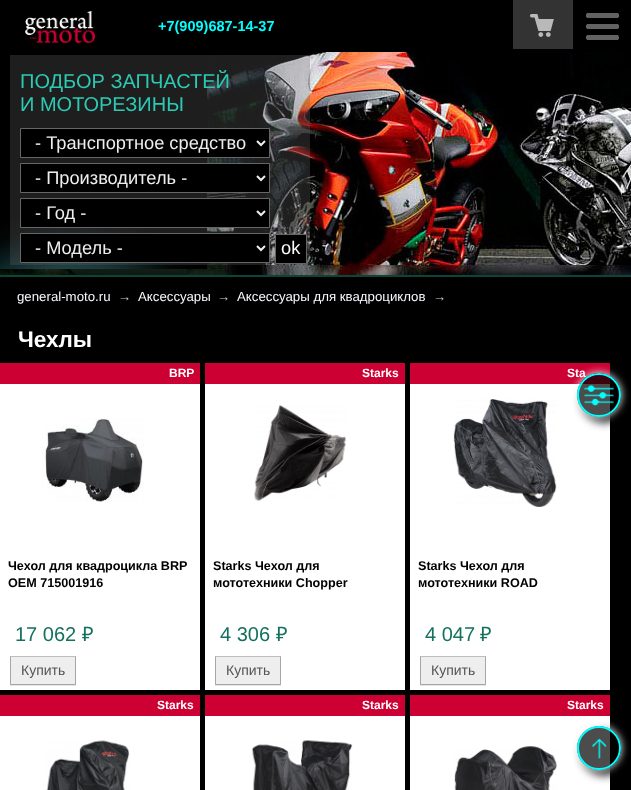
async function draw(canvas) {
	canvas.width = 631;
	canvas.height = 790;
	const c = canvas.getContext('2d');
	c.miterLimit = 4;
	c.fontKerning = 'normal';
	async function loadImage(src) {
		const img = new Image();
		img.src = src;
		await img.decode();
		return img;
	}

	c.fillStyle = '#000';
	c.fillRect(0, 0, 631, 790);
	c.drawImage(await loadImage('img1.png'), 0, 52, 631, 223);
	c.drawImage(await loadImage('img2.png'), 25, 11, 70, 32);
	c.font = 'bold 14.5px Liberation Sans';
	c.fillStyle = '#0ff';
	c.fillText('+7(909)687-14-37', 158, 31);
	c.fillStyle = '#333';
	c.fillRect(513, 0, 60, 49);
	c.drawImage(await loadImage('img3.png'), 530, 14, 24, 23);
	c.drawImage(await loadImage('img4.png'), 586, 13, 33, 27);
	c.fillStyle = '#6464644d';
	c.fillRect(10, 55, 300, 210);
	c.font = '20px Liberation Sans';
	c.fillStyle = '#2dc9b3';
	c.fillText('ПОДБОР ЗАПЧАСТЕЙ', 20, 88);
	c.fillText('И МОТОРЕЗИНЫ', 20, 111);
	c.fillStyle = '#000';
	c.beginPath();
	c.rect(20.5, 128.5, 249, 29);
	c.fill();
	c.strokeStyle = '#666';
	c.stroke();
	c.beginPath();
	c.moveTo(257, 141);
	c.lineTo(261, 145);
	c.lineTo(265, 141);
	c.strokeStyle = '#eee';
	c.lineWidth = 2;
	c.stroke();
	c.font = '18.25px Liberation Sans';
	c.fillStyle = '#eee';
	c.fillText('- Транспортное средство', 35, 149);
	c.fillStyle = '#000';
	c.beginPath();
	c.rect(20.5, 163.5, 249, 29);
	c.fill();
	c.strokeStyle = '#666';
	c.lineWidth = 1;
	c.stroke();
	c.beginPath();
	c.moveTo(257, 176);
	c.lineTo(261, 180);
	c.lineTo(265, 176);
	c.strokeStyle = '#eee';
	c.lineWidth = 2;
	c.stroke();
	c.fillStyle = '#eee';
	c.fillText('- Производитель -', 35, 184);
	c.fillStyle = '#000';
	c.beginPath();
	c.rect(20.5, 198.5, 249, 29);
	c.fill();
	c.strokeStyle = '#666';
	c.lineWidth = 1;
	c.stroke();
	c.beginPath();
	c.moveTo(257, 211);
	c.lineTo(261, 215);
	c.lineTo(265, 211);
	c.strokeStyle = '#eee';
	c.lineWidth = 2;
	c.stroke();
	c.fillStyle = '#eee';
	c.fillText('- Год -', 35, 219);
	c.fillStyle = '#000';
	c.beginPath();
	c.rect(20.5, 233.5, 249, 29);
	c.fill();
	c.strokeStyle = '#666';
	c.lineWidth = 1;
	c.stroke();
	c.beginPath();
	c.moveTo(257, 246);
	c.lineTo(261, 250);
	c.lineTo(265, 246);
	c.strokeStyle = '#eee';
	c.lineWidth = 2;
	c.stroke();
	c.fillStyle = '#eee';
	c.fillText('- Модель -', 35, 254);
	c.fillStyle = '#0000001a';
	c.filter = 'blur(0.5px)';
	c.beginPath();
	c.rect(275, 235, 32, 30);
	c.fill();
	c.filter = 'none';
	c.fillStyle = '#000';
	c.beginPath();
	c.rect(275.5, 234.5, 31, 29);
	c.fill();
	c.strokeStyle = '#666';
	c.lineWidth = 1;
	c.stroke();
	c.fillStyle = '#fff';
	c.fillText('ok', 281, 254);
	c.fillStyle = '#0c4439';
	c.fillRect(0, 275, 631, 2);
	c.font = '13.25px Liberation Sans';
	c.fillStyle = '#f8f8ff';
	c.fillText('general-moto.ru', 17, 301);
	c.fillStyle = '#ccc';
	c.fillText('→', 118, 301);
	c.fillStyle = '#f8f8ff';
	c.fillText('Аксессуары', 138, 301);
	c.fillStyle = '#ccc';
	c.fillText('→', 217, 301);
	c.fillStyle = '#f8f8ff';
	c.fillText('Аксессуары для квадроциклов', 237, 301);
	c.fillStyle = '#ccc';
	c.fillText('→', 433, 301);
	c.font = 'bold 22.5px Liberation Sans';
	c.fillStyle = '#fff';
	c.fillText('Чехлы', 18, 347);
	c.fillRect(410, 384, 200, 306);
	c.fillStyle = '#c03';
	c.fillRect(410, 363, 200, 21);
	c.save();
	c.beginPath();
	c.moveTo(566, 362);
	c.lineTo(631, 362);
	c.lineTo(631, 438);
	c.lineTo(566, 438);
	c.closePath();
	c.moveTo(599, 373);
	c.bezierCurveTo(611, 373, 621, 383, 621, 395);
	c.bezierCurveTo(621, 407, 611, 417, 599, 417);
	c.bezierCurveTo(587, 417, 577, 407, 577, 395);
	c.bezierCurveTo(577, 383, 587, 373, 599, 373);
	c.closePath();
	c.clip('evenodd');
	c.fillStyle = '#000';
	c.filter = 'blur(5px)';
	c.beginPath();
	c.roundRect(582, 378, 44, 44, 22);
	c.fill();
	c.filter = 'none';
	c.restore();
	c.save();
	c.beginPath();
	c.moveTo(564, 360);
	c.lineTo(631, 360);
	c.lineTo(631, 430);
	c.lineTo(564, 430);
	c.closePath();
	c.moveTo(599, 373);
	c.bezierCurveTo(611, 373, 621, 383, 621, 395);
	c.bezierCurveTo(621, 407, 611, 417, 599, 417);
	c.bezierCurveTo(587, 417, 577, 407, 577, 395);
	c.bezierCurveTo(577, 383, 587, 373, 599, 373);
	c.closePath();
	c.clip('evenodd');
	c.fillStyle = '#fff';
	c.filter = 'blur(4px)';
	c.beginPath();
	c.roundRect(577, 373, 44, 44, 22);
	c.fill();
	c.filter = 'none';
	c.restore();
	c.font = 'bold 12px Liberation Sans';
	c.fillStyle = '#fff';
	c.fillText('Sta', 567, 377);
	c.fillStyle = '#000000b3';
	c.beginPath();
	c.arc(599, 395, 22, 0, 2 * Math.PI);
	c.fill();
	c.drawImage(await loadImage('img5.png'), 584, 385, 30, 21);
	c.beginPath();
	c.arc(599, 395, 21, 0, 2 * Math.PI);
	c.strokeStyle = '#0ff';
	c.lineWidth = 2;
	c.stroke();
	c.fillStyle = '#fff';
	c.fillRect(0, 384, 200, 306);
	c.fillStyle = '#c03';
	c.fillRect(0, 363, 200, 21);
	c.fillStyle = '#fff';
	c.fillText('BRP', 169, 377);
	c.drawImage(await loadImage('img6.png'), 42, 418, 102, 84);
	c.font = 'bold 12.6px Liberation Sans';
	c.fillStyle = '#000';
	c.fillText('Чехол для квадроцикла BRP', 8, 570);
	c.fillText('OEM 715001916', 8, 587);
	c.font = '20px Liberation Sans';
	c.fillStyle = '#14715f';
	c.fillText('17 062', 15, 641);
	c.font = '20px Noto Sans';
	c.fillText('₽', 82, 641);
	c.fillStyle = '#0000001a';
	c.filter = 'blur(0.5px)';
	c.beginPath();
	c.rect(10, 657, 66, 29);
	c.fill();
	c.filter = 'none';
	c.fillStyle = '#eee';
	c.fillRect(10, 656, 66, 29);
	c.fillStyle = '#bebebe';
	c.beginPath();
	c.moveTo(10, 656);
	c.lineTo(76, 656);
	c.lineTo(75, 657);
	c.lineTo(11, 657);
	c.closePath();
	c.fill();
	c.fillStyle = '#0000004d';
	c.beginPath();
	c.moveTo(76, 656);
	c.lineTo(76, 685);
	c.lineTo(75, 684);
	c.lineTo(75, 657);
	c.closePath();
	c.fill();
	c.beginPath();
	c.moveTo(76, 685);
	c.lineTo(10, 685);
	c.lineTo(11, 684);
	c.lineTo(75, 684);
	c.closePath();
	c.fill();
	c.beginPath();
	c.moveTo(10, 685);
	c.lineTo(10, 656);
	c.lineTo(11, 657);
	c.lineTo(11, 684);
	c.closePath();
	c.fill();
	c.font = '14px Liberation Sans';
	c.fillStyle = '#555';
	c.fillText('Купить', 21, 675);
	c.fillStyle = '#fff';
	c.fillRect(205, 384, 200, 306);
	c.fillStyle = '#c03';
	c.fillRect(205, 363, 200, 21);
	c.font = 'bold 12px Liberation Sans';
	c.fillStyle = '#fff';
	c.fillText('Starks', 362, 377);
	c.drawImage(await loadImage('img7.png'), 254, 404, 92, 97);
	c.font = 'bold 12.6px Liberation Sans';
	c.fillStyle = '#000';
	c.fillText('Starks Чехол для', 213, 570);
	c.fillText('мототехники Chopper', 213, 587);
	c.font = '20px Liberation Sans';
	c.fillStyle = '#14715f';
	c.fillText('4 306', 220, 641);
	c.font = '20px Noto Sans';
	c.fillText('₽', 276, 641);
	c.fillStyle = '#0000001a';
	c.filter = 'blur(0.5px)';
	c.beginPath();
	c.rect(215, 657, 66, 29);
	c.fill();
	c.filter = 'none';
	c.fillStyle = '#eee';
	c.fillRect(215, 656, 66, 29);
	c.fillStyle = '#bebebe';
	c.beginPath();
	c.moveTo(215, 656);
	c.lineTo(281, 656);
	c.lineTo(280, 657);
	c.lineTo(216, 657);
	c.closePath();
	c.fill();
	c.fillStyle = '#0000004d';
	c.beginPath();
	c.moveTo(281, 656);
	c.lineTo(281, 685);
	c.lineTo(280, 684);
	c.lineTo(280, 657);
	c.closePath();
	c.fill();
	c.beginPath();
	c.moveTo(281, 685);
	c.lineTo(215, 685);
	c.lineTo(216, 684);
	c.lineTo(280, 684);
	c.closePath();
	c.fill();
	c.beginPath();
	c.moveTo(215, 685);
	c.lineTo(215, 656);
	c.lineTo(216, 657);
	c.lineTo(216, 684);
	c.closePath();
	c.fill();
	c.font = '14px Liberation Sans';
	c.fillStyle = '#555';
	c.fillText('Купить', 226, 675);
	c.drawImage(await loadImage('img8.png'), 453, 399, 104, 108);
	c.font = 'bold 12.6px Liberation Sans';
	c.fillStyle = '#000';
	c.fillText('Starks Чехол для', 418, 570);
	c.fillText('мототехники ROAD', 418, 587);
	c.font = '20px Liberation Sans';
	c.fillStyle = '#14715f';
	c.fillText('4 047', 425, 641);
	c.font = '20px Noto Sans';
	c.fillText('₽', 480, 641);
	c.fillStyle = '#0000001a';
	c.filter = 'blur(0.5px)';
	c.beginPath();
	c.rect(420, 657, 66, 29);
	c.fill();
	c.filter = 'none';
	c.fillStyle = '#eee';
	c.fillRect(420, 656, 66, 29);
	c.fillStyle = '#bebebe';
	c.beginPath();
	c.moveTo(420, 656);
	c.lineTo(486, 656);
	c.lineTo(485, 657);
	c.lineTo(421, 657);
	c.closePath();
	c.fill();
	c.fillStyle = '#0000004d';
	c.beginPath();
	c.moveTo(486, 656);
	c.lineTo(486, 685);
	c.lineTo(485, 684);
	c.lineTo(485, 657);
	c.closePath();
	c.fill();
	c.beginPath();
	c.moveTo(486, 685);
	c.lineTo(420, 685);
	c.lineTo(421, 684);
	c.lineTo(485, 684);
	c.closePath();
	c.fill();
	c.beginPath();
	c.moveTo(420, 685);
	c.lineTo(420, 656);
	c.lineTo(421, 657);
	c.lineTo(421, 684);
	c.closePath();
	c.fill();
	c.font = '14px Liberation Sans';
	c.fillStyle = '#555';
	c.fillText('Купить', 431, 675);
	c.fillStyle = '#fff';
	c.fillRect(0, 716, 200, 74);
	c.fillStyle = '#c03';
	c.fillRect(0, 695, 200, 21);
	c.font = 'bold 12px Liberation Sans';
	c.fillStyle = '#fff';
	c.fillText('Starks', 157, 709);
	c.drawImage(await loadImage('img9.png'), 46, 740, 84, 50);
	c.fillRect(205, 716, 200, 74);
	c.fillStyle = '#c03';
	c.fillRect(205, 695, 200, 21);
	c.fillStyle = '#fff';
	c.fillText('Starks', 362, 709);
	c.drawImage(await loadImage('img10.png'), 251, 740, 102, 50);
	c.fillRect(410, 716, 200, 74);
	c.fillStyle = '#c03';
	c.fillRect(410, 695, 200, 21);
	c.fillStyle = '#fff';
	c.fillText('Starks', 567, 709);
	c.drawImage(await loadImage('img11.png'), 454, 746, 104, 44);
	c.save();
	c.beginPath();
	c.moveTo(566, 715);
	c.lineTo(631, 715);
	c.lineTo(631, 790);
	c.lineTo(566, 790);
	c.closePath();
	c.moveTo(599, 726);
	c.bezierCurveTo(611, 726, 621, 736, 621, 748);
	c.bezierCurveTo(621, 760, 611, 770, 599, 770);
	c.bezierCurveTo(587, 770, 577, 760, 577, 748);
	c.bezierCurveTo(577, 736, 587, 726, 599, 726);
	c.closePath();
	c.clip('evenodd');
	c.fillStyle = '#000';
	c.filter = 'blur(5px)';
	c.beginPath();
	c.roundRect(582, 731, 44, 44, 22);
	c.fill();
	c.filter = 'none';
	c.restore();
	c.save();
	c.beginPath();
	c.moveTo(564, 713);
	c.lineTo(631, 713);
	c.lineTo(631, 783);
	c.lineTo(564, 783);
	c.closePath();
	c.moveTo(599, 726);
	c.bezierCurveTo(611, 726, 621, 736, 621, 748);
	c.bezierCurveTo(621, 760, 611, 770, 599, 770);
	c.bezierCurveTo(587, 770, 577, 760, 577, 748);
	c.bezierCurveTo(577, 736, 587, 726, 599, 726);
	c.closePath();
	c.clip('evenodd');
	c.filter = 'blur(4px)';
	c.beginPath();
	c.roundRect(577, 726, 44, 44, 22);
	c.fill();
	c.filter = 'none';
	c.restore();
	c.fillStyle = '#000000b3';
	c.beginPath();
	c.arc(599, 748, 22, 0, 2 * Math.PI);
	c.fill();
	c.drawImage(await loadImage('img12.png'), 592, 738, 15, 21);
	c.beginPath();
	c.arc(599, 748, 21, 0, 2 * Math.PI);
	c.stroke();
}

draw(document.querySelector('canvas'));
